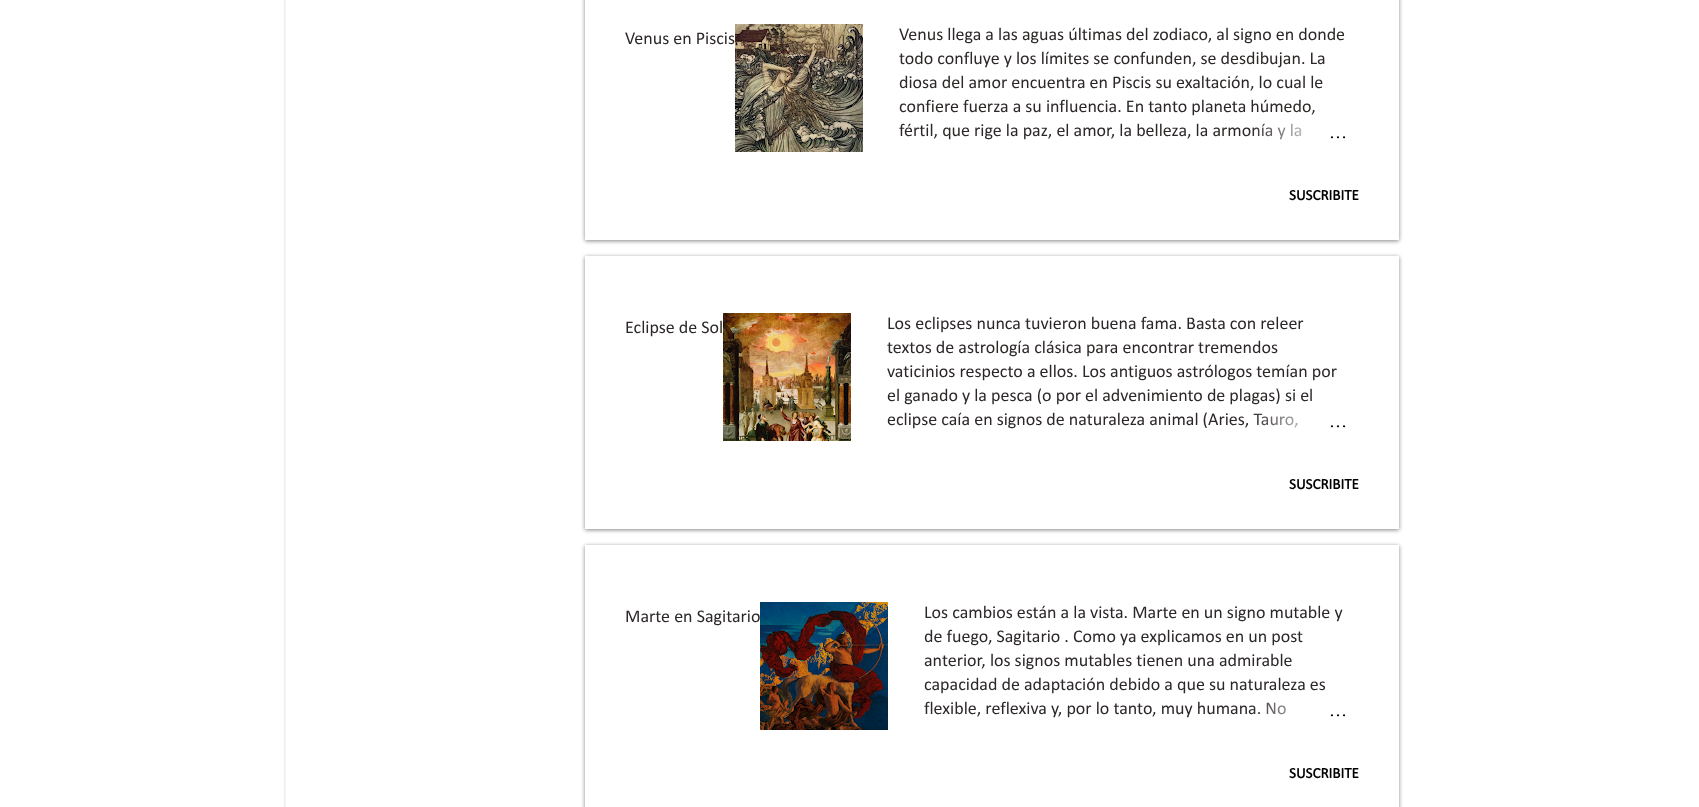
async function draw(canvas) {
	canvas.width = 1699;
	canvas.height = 807;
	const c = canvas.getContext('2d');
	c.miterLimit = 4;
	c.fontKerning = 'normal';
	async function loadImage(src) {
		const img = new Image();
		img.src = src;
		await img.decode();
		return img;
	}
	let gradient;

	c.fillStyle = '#fff';
	c.fillRect(0, 0, 1699, 807);
	c.save();
	c.beginPath();
	c.rect(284, 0, 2, 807);
	c.clip();
	c.fillStyle = '#0000001a';
	c.filter = 'blur(1.5px)';
	c.beginPath();
	c.rect(1, -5, 284, 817);
	c.fill();
	c.filter = 'none';
	c.restore();
	c.save();
	c.beginPath();
	c.moveTo(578, 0);
	c.lineTo(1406, 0);
	c.lineTo(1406, 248);
	c.lineTo(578, 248);
	c.closePath();
	c.moveTo(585, -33);
	c.lineTo(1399, -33);
	c.lineTo(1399, 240);
	c.lineTo(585, 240);
	c.closePath();
	c.clip('evenodd');
	c.fillStyle = '#858585';
	c.filter = 'blur(2px)';
	c.beginPath();
	c.rect(585, -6, 814, 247);
	c.fill();
	c.filter = 'none';
	c.restore();
	c.font = '18px Calibri';
	c.fillStyle = '#2d2828';
	c.fillText('Venus en Piscis', 625, 44);
	c.drawImage(await loadImage('img1.png'), 735, 24, 128, 128);
	for (const [text, x, y] of [
		['Venus llega a las aguas últimas del zodiaco, al signo en donde', 899, 40],
		['todo confluye y los límites se confunden, se desdibujan. La', 899, 64],
		['diosa del amor encuentra en Piscis su exaltación, lo cual le', 899, 88],
		['confiere fuerza a su influencia. En tanto planeta húmedo,', 899, 112],
		['fértil, que rige la paz, el amor, la belleza, la armonía y la', 899, 136],
	]) {
		c.fillText(text, x, y);
	}
	gradient = c.createLinearGradient(1347, 132, 1251, 132);
	gradient.addColorStop(0, '#fff');
	gradient.addColorStop(0.2, '#fff');
	gradient.addColorStop(1, '#ffffff00');
	c.fillStyle = gradient;
	c.fillRect(1253, 123, 48, 17);
	c.font = '18px Liberation Serif';
	c.fillStyle = '#000';
	c.fillText('…', 1329, 138);
	c.font = 'bold 15px Calibri';
	c.fillText('SUSCRIBITE', 1289, 200);
	c.save();
	c.beginPath();
	c.moveTo(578, 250);
	c.lineTo(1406, 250);
	c.lineTo(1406, 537);
	c.lineTo(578, 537);
	c.closePath();
	c.moveTo(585, 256);
	c.lineTo(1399, 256);
	c.lineTo(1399, 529);
	c.lineTo(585, 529);
	c.closePath();
	c.clip('evenodd');
	c.fillStyle = '#858585';
	c.filter = 'blur(2px)';
	c.beginPath();
	c.rect(585, 257, 814, 273);
	c.fill();
	c.filter = 'none';
	c.restore();
	c.font = '18px Calibri';
	c.fillStyle = '#2d2828';
	c.fillText('Eclipse de Sol', 625, 333);
	c.drawImage(await loadImage('img2.png'), 723, 313, 128, 128);
	for (const [text, x, y] of [
		['Los eclipses nunca tuvieron buena fama. Basta con releer', 887, 329],
		['textos de astrología clásica para encontrar tremendos', 887, 353],
		['vaticinios respecto a ellos. Los antiguos astrólogos temían por', 887, 377],
		['el ganado y la pesca (o por el advenimiento de plagas) si el', 887, 401],
		['eclipse caía en signos de naturaleza animal (Aries, Tauro,', 887, 425],
	]) {
		c.fillText(text, x, y);
	}
	gradient = c.createLinearGradient(1347, 421, 1251, 421);
	gradient.addColorStop(0, '#fff');
	gradient.addColorStop(0.2, '#fff');
	gradient.addColorStop(1, '#ffffff00');
	c.fillStyle = gradient;
	c.fillRect(1253, 413, 44, 15);
	c.font = '18px Liberation Serif';
	c.fillStyle = '#000';
	c.fillText('…', 1329, 427);
	c.font = 'bold 15px Calibri';
	c.fillText('SUSCRIBITE', 1289, 489);
	c.save();
	c.beginPath();
	c.moveTo(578, 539);
	c.lineTo(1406, 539);
	c.lineTo(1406, 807);
	c.lineTo(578, 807);
	c.closePath();
	c.moveTo(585, 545);
	c.lineTo(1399, 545);
	c.lineTo(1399, 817);
	c.lineTo(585, 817);
	c.closePath();
	c.clip('evenodd');
	c.fillStyle = '#858585';
	c.filter = 'blur(2px)';
	c.beginPath();
	c.rect(585, 546, 814, 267);
	c.fill();
	c.filter = 'none';
	c.restore();
	c.font = '18px Calibri';
	c.fillStyle = '#2d2828';
	c.fillText('Marte en Sagitario', 625, 622);
	c.drawImage(await loadImage('img3.png'), 760, 602, 128, 128);
	for (const [text, x, y] of [
		['Los cambios están a la vista. Marte en un signo mutable y', 924, 618],
		['de fuego, Sagitario . Como ya explicamos en un post', 924, 642],
		['anterior, los signos mutables tienen una admirable', 924, 666],
		['capacidad de adaptación debido a que su naturaleza es', 924, 690],
		['flexible, reflexiva y, por lo tanto, muy humana. No', 924, 714],
	]) {
		c.fillText(text, x, y);
	}
	gradient = c.createLinearGradient(1347, 710, 1251, 710);
	gradient.addColorStop(0, '#fff');
	gradient.addColorStop(0.2, '#fff');
	gradient.addColorStop(1, '#ffffff00');
	c.fillStyle = gradient;
	c.fillRect(1253, 702, 33, 13);
	c.font = '18px Liberation Serif';
	c.fillStyle = '#000';
	c.fillText('…', 1329, 716);
	c.font = 'bold 15px Calibri';
	c.fillText('SUSCRIBITE', 1289, 778);
}

draw(document.querySelector('canvas'));
